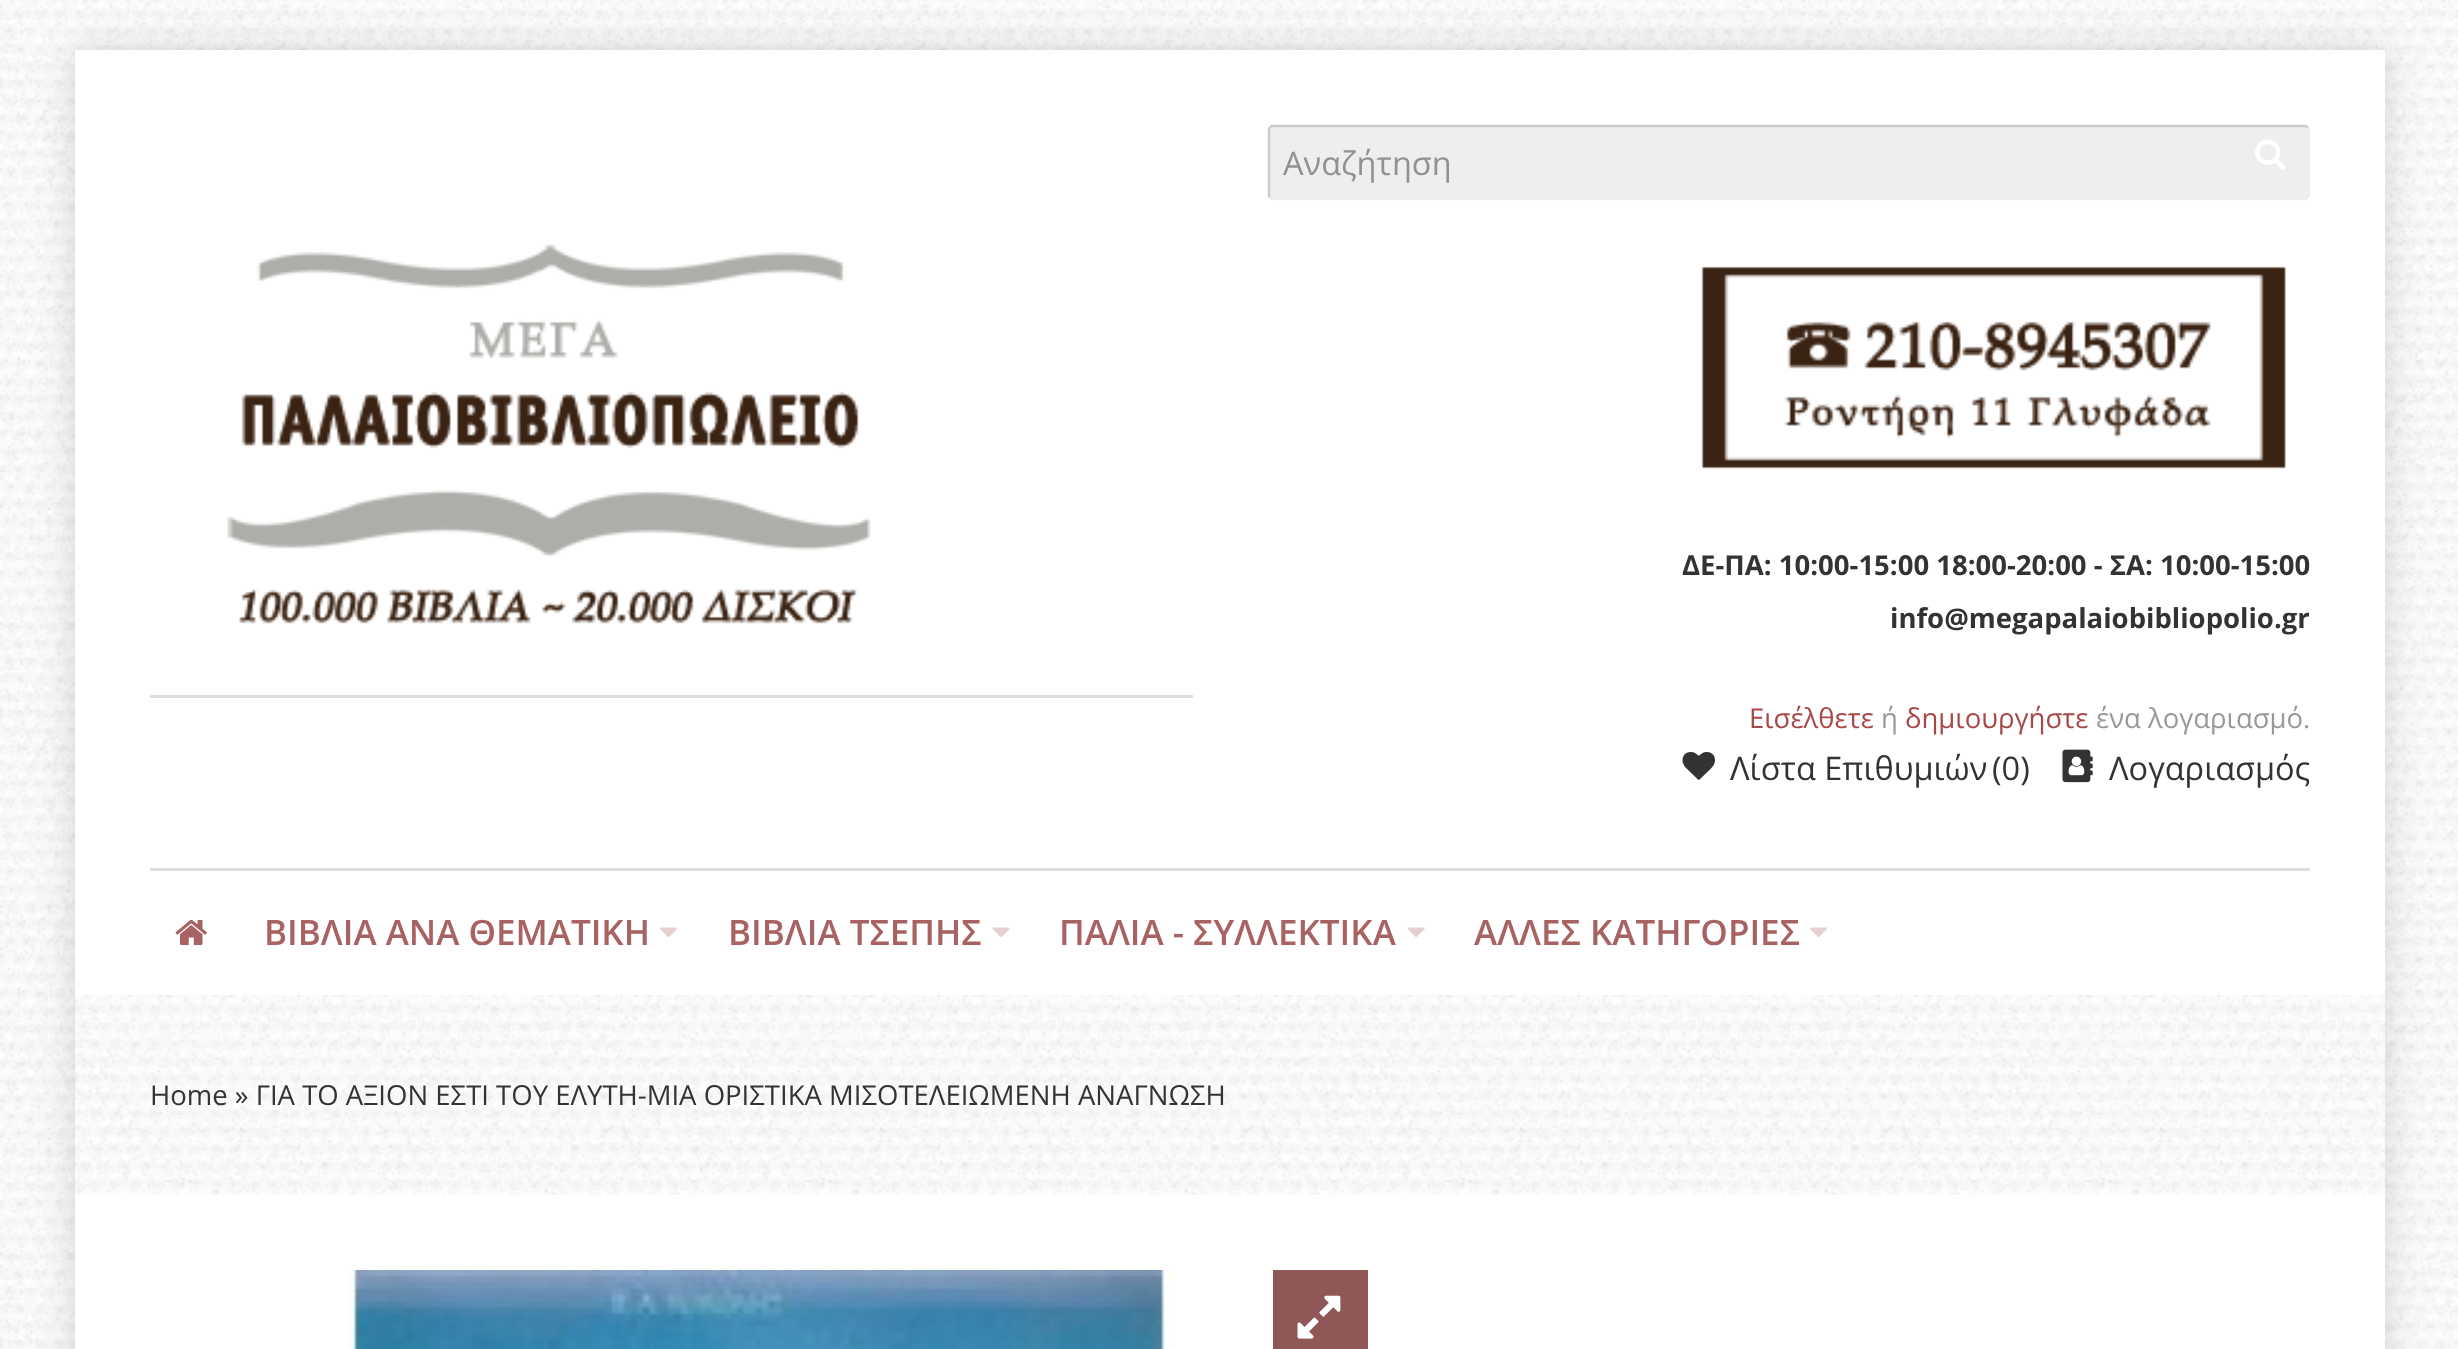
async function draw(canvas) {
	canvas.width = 2458;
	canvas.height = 1349;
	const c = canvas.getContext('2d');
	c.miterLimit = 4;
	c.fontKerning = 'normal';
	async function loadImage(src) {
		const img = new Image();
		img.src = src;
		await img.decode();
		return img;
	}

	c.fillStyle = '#fff';
	c.fillRect(0, 0, 2458, 1349);
	c.drawImage(await loadImage('img1.png'), 0, 0, 2458, 1349);
	c.fillStyle = '#00000026';
	c.filter = 'blur(19px)';
	c.beginPath();
	c.rect(75, 50, 2310, 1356);
	c.fill();
	c.filter = 'none';
	c.fillStyle = '#fff';
	c.fillRect(75, 50, 2310, 1299);
	c.drawImage(await loadImage('img2.png'), 227, 244, 644, 380);
	c.fillStyle = '#ddd';
	c.fillRect(150, 695, 1043, 3);
	c.fillStyle = '#eee';
	c.beginPath();
	c.roundRect(1268, 125, 1042, 75, 5);
	c.fill();
	c.beginPath();
	c.moveTo(2307.5, 127.5);
	c.bezierCurveTo(2308.5, 128, 2309, 129, 2309, 130);
	c.lineTo(2309, 195);
	c.bezierCurveTo(2309, 196, 2308.5, 197, 2307.5, 197.5);
	c.bezierCurveTo(2307, 198.5, 2306, 199, 2305, 199);
	c.lineTo(1272.5, 199);
	c.bezierCurveTo(1271.5, 199, 1270.5, 198.5, 1270, 197.5);
	c.strokeStyle = '#eee';
	c.lineWidth = 2.5;
	c.stroke();
	c.beginPath();
	c.moveTo(1270, 197.5);
	c.bezierCurveTo(1269, 197, 1269, 196, 1269, 195);
	c.lineTo(1269, 130);
	c.bezierCurveTo(1269, 129, 1269, 128, 1270, 127.5);
	c.bezierCurveTo(1270.5, 126.5, 1271.5, 126, 1272.5, 126);
	c.lineTo(2305, 126);
	c.bezierCurveTo(2306, 126, 2307, 126.5, 2307.5, 127.5);
	c.strokeStyle = '#ccc';
	c.stroke();
	c.font = '32.5px Open Sans';
	c.fillStyle = '#919191';
	c.fillText('Αναζήτηση', 1283, 175);
	c.drawImage(await loadImage('img3.png'), 2255, 139, 30, 31);
	c.drawImage(await loadImage('img4.png'), 1701, 266, 585, 203);
	c.font = 'bold 27.5px Open Sans';
	c.fillStyle = '#333';
	c.fillText('ΔΕ-ΠΑ: 10:00-15:00 18:00-20:00 - ΣΑ: 10:00-15:00', 1682, 575);
	c.fillText('info@megapalaiobibliopolio.gr', 1890, 628);
	c.font = '27.5px Open Sans';
	c.fillStyle = '#a84848';
	c.fillText('Εισέλθετε', 1749, 728);
	c.fillStyle = '#999';
	c.fillText('ή', 1881, 728);
	c.fillStyle = '#a84848';
	c.fillText('δημιουργήστε', 1905, 728);
	c.fillStyle = '#999';
	c.fillText('ένα λογαριασμό.', 2096, 728);
	c.drawImage(await loadImage('img5.png'), 1682, 752, 33, 28);
	c.font = '32.5px Open Sans';
	c.fillStyle = '#333';
	c.fillText('Λίστα Επιθυμιών', 1730, 780);
	c.fillText('(0)', 1992, 780);
	c.drawImage(await loadImage('img6.png'), 2062, 749, 31, 34);
	c.fillText('Λογαριασμός', 2109, 780);
	c.fillStyle = '#ddd';
	c.fillRect(150, 868, 2160, 3);
	c.drawImage(await loadImage('img7.png'), 175, 920, 32, 25);
	c.font = '600 35px Open Sans';
	c.fillStyle = '#a86262';
	c.fillText('ΒΙΒΛΙΑ ΑΝΑ ΘΕΜΑΤΙΚΗ', 264, 945);
	c.drawImage(await loadImage('img8.png'), 660, 927, 18, 11);
	c.fillText('ΒΙΒΛΙΑ ΤΣΕΠΗΣ', 728, 945);
	c.drawImage(await loadImage('img9.png'), 992, 927, 18, 10);
	c.fillText('ΠΑΛΙΑ - ΣΥΛΛΕΚΤΙΚΑ', 1059, 945);
	c.drawImage(await loadImage('img9.png'), 1407, 927, 18, 10);
	c.fillText('ΑΛΛΕΣ ΚΑΤΗΓΟΡΙΕΣ', 1474, 945);
	c.drawImage(await loadImage('img8.png'), 1810, 927, 18, 11);
	c.drawImage(await loadImage('img10.png'), 75, 995, 2310, 200);
	c.font = '27.5px Open Sans';
	c.fillStyle = '#333';
	c.fillText('Home » ΓΙΑ ΤΟ ΑΞΙΟΝ ΕΣΤΙ ΤΟΥ ΕΛΥΤΗ-ΜΙΑ ΟΡΙΣΤΙΚΑ ΜΙΣΟΤΕΛΕΙΩΜΕΝΗ ΑΝΑΓΝΩΣΗ', 150, 1105);
	c.drawImage(await loadImage('img11.png'), 347, 1270, 827, 79);
	c.fillStyle = '#905757';
	c.fillRect(1273, 1270, 95, 79);
	c.drawImage(await loadImage('img12.png'), 1297, 1295, 44, 44);
}

draw(document.querySelector('canvas'));
